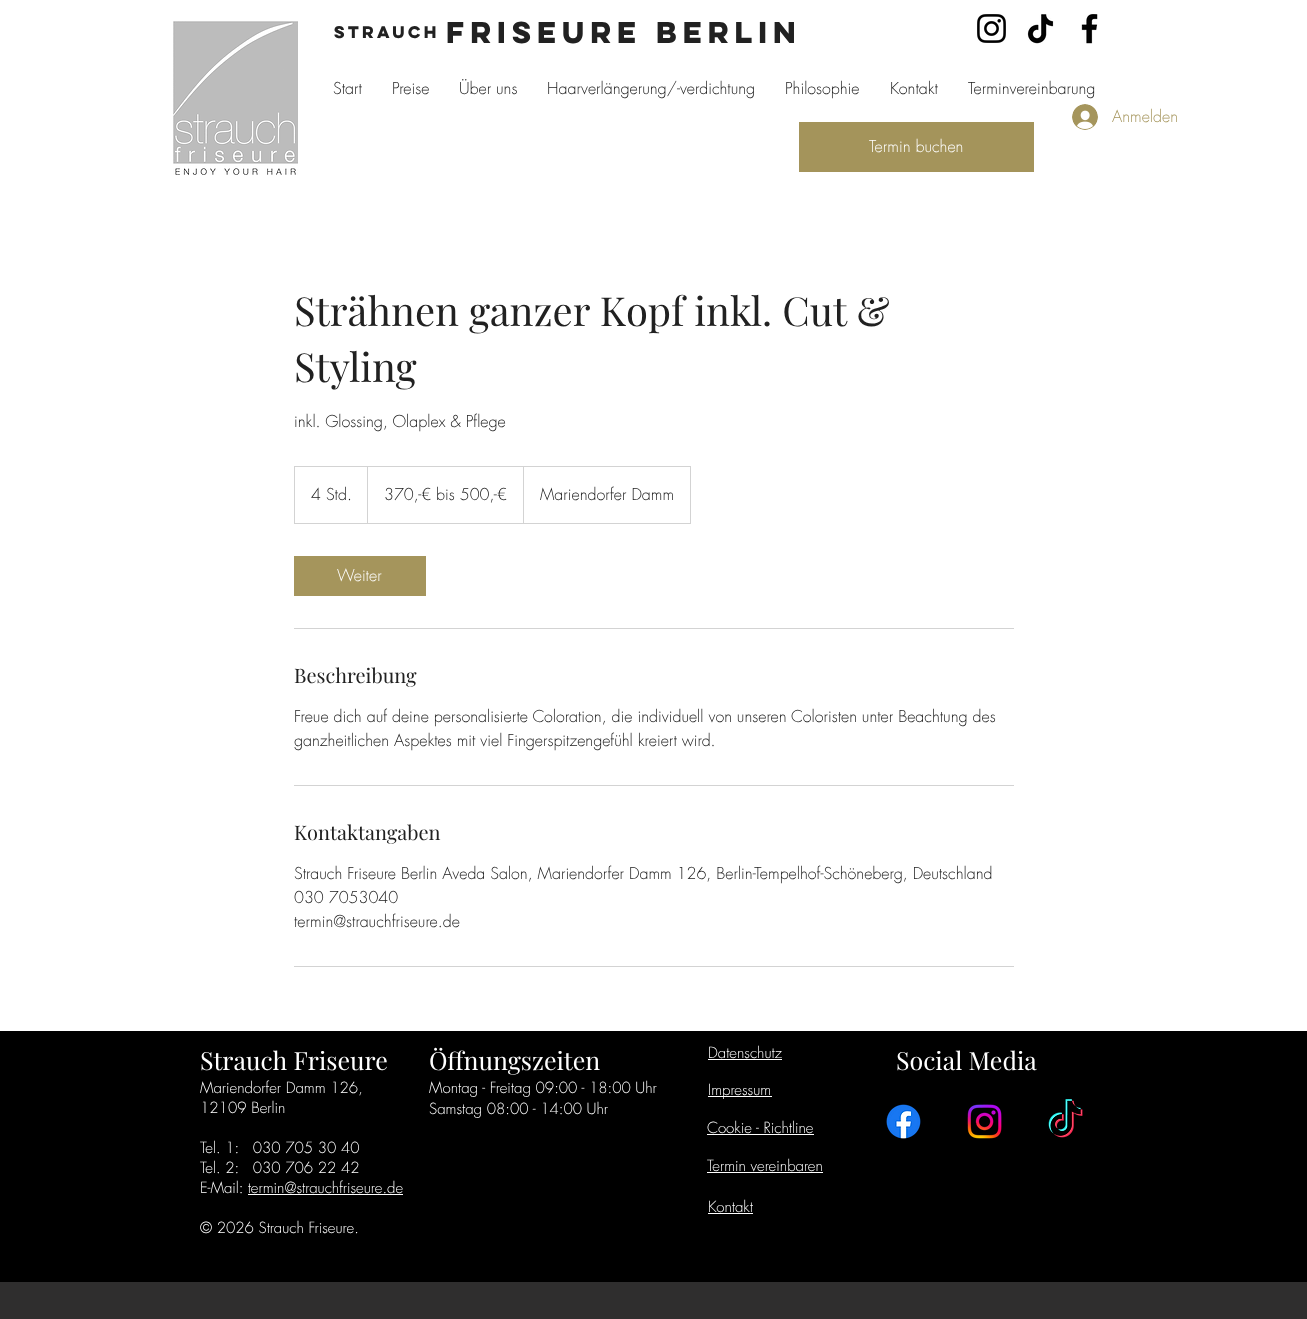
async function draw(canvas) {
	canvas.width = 1307;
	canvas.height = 1319;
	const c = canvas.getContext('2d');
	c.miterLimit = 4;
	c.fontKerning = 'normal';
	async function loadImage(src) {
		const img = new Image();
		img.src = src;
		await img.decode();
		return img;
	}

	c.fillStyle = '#fff';
	c.fillRect(0, 0, 1307, 1319);
	c.drawImage(await loadImage('img1.png'), 173, 21, 125, 154);
	c.font = 'bold 15px "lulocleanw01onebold"';
	c.fillStyle = '#212121';
	c.fillText('Strauch', 334, 38);
	c.font = 'bold 27px "lulocleanw01onebold"';
	c.fillText('FriseurE Berlin', 446, 43);
	c.drawImage(await loadImage('img2.png'), 977, 14, 29, 29);
	c.drawImage(await loadImage('img3.png'), 1027, 14, 27, 30);
	c.drawImage(await loadImage('img4.png'), 1081, 14, 17, 30);
	c.font = '300 16px futura';
	for (const [text, x, y] of [
		['Start', 333, 94],
		['Preise', 392, 94],
		['Über uns', 459, 94],
		['Haarverlängerung/-verdichtung', 547, 94],
		['Philosophie', 785, 94],
		['Kontakt', 890, 94],
		['Terminvereinbarung', 968, 94],
	]) {
		c.fillText(text, x, y);
	}
	c.drawImage(await loadImage('img5.png'), 1072, 104, 26, 26);
	c.fillStyle = '#a5955c';
	c.fillText('Anmelden', 1112, 122);
	c.fillStyle = '#a4945b';
	c.fillRect(799, 122, 235, 50);
	c.fillStyle = '#fff';
	c.fillText('Termin buchen', 869, 152);
	c.font = '40px Playfair Display';
	c.fillStyle = '#212121';
	c.fillText('Strähnen ganzer Kopf inkl. Cut &', 294, 326);
	c.fillText('Styling', 294, 382);
	c.font = '300 16px futura';
	c.fillText('inkl. Glossing, Olaplex & Pflege', 294, 427);
	c.strokeStyle = '#d3d3d3';
	c.strokeRect(294.5, 466.5, 396, 57);
	c.fillText('4 Std.', 311, 500);
	c.fillStyle = '#d3d3d3';
	c.beginPath();
	c.moveTo(367, 523);
	c.lineTo(367, 466);
	c.lineTo(368, 467);
	c.lineTo(368, 523);
	c.closePath();
	c.fill();
	c.fillStyle = '#212121';
	c.fillText('370,-€ bis 500,-€', 384, 500);
	c.fillStyle = '#d3d3d3';
	c.beginPath();
	c.moveTo(523, 523);
	c.lineTo(523, 466);
	c.lineTo(524, 467);
	c.lineTo(524, 523);
	c.closePath();
	c.fill();
	c.fillStyle = '#212121';
	c.fillText('Mariendorfer Damm', 540, 500);
	c.fillStyle = '#a5955c';
	c.fillRect(294, 556, 132, 40);
	c.fillStyle = '#fff';
	c.fillText('Weiter', 337, 581);
	c.fillStyle = '#d3d3d3';
	c.fillRect(294, 628, 720, 1);
	c.font = '20px Playfair Display';
	c.fillStyle = '#212121';
	c.fillText('Beschreibung', 294, 683);
	c.font = '300 16px futura';
	c.fillText('Freue dich auf deine personalisierte Coloration, die individuell von unseren Coloristen unter Beachtung des', 294, 722);
	c.fillText('ganzheitlichen Aspektes mit viel Fingerspitzengefühl kreiert wird.', 294, 746);
	c.fillStyle = '#d3d3d3';
	c.fillRect(294, 785, 720, 1);
	c.font = '20px Playfair Display';
	c.fillStyle = '#212121';
	c.fillText('Kontaktangaben', 294, 840);
	c.font = '300 16px futura';
	for (const [text, x, y] of [
		['Strauch Friseure Berlin Aveda Salon, Mariendorfer Damm 126, Berlin-Tempelhof-Schöneberg, Deutschland', 294, 879],
		['030 7053040', 294, 903],
		['termin@strauchfriseure.de', 294, 927],
	]) {
		c.fillText(text, x, y);
	}
	c.fillStyle = '#d3d3d3';
	c.fillRect(294, 966, 720, 1);
	c.fillStyle = '#000';
	c.fillRect(0, 1031, 1307, 251);
	c.font = '25px Playfair Display';
	c.fillStyle = '#fff';
	c.fillText('Strauch Friseure', 200, 1070);
	c.font = '300 15px futura';
	for (const [text, x, y] of [
		['Mariendorfer Damm 126,', 200, 1093],
		['12109 Berlin', 200, 1113],
		['Tel. 1:   030 705 30 40', 200, 1153],
		['Tel. 2:   030 706 22 42', 200, 1173],
		['E-Mail: termin@strauchfriseure.de', 200, 1193],
	]) {
		c.fillText(text, x, y);
	}
	c.fillRect(248, 1194, 155, 1);
	c.fillText('© 2026 Strauch Friseure.', 200, 1233);
	c.fillText('Datenschutz', 708, 1058);
	c.fillRect(708, 1059, 74, 1);
	c.fillRect(708, 1096, 64, 1);
	c.fillText('Impressum', 708, 1095);
	c.fillText('Cookie - Richtline', 707, 1133);
	c.fillRect(707, 1134, 107, 1);
	c.fillText('Termin vereinbaren', 707, 1171);
	c.fillRect(707, 1172, 116, 1);
	c.fillText('Kontakt', 708, 1212);
	c.fillRect(708, 1213, 45, 1);
	c.font = '25px Playfair Display';
	c.fillText('Öffnungszeiten', 429, 1070);
	c.font = '300 15px futura';
	c.fillText('Montag - Freitag 09:00 - 18:00 Uhr', 429, 1093);
	c.fillText('Samstag 08:00 - 14:00 Uhr', 429, 1114);
	c.font = '25px Playfair Display';
	c.fillText('Social Media', 896, 1070);
	c.drawImage(await loadImage('img6.png'), 886, 1104, 35, 35);
	c.drawImage(await loadImage('img7.png'), 967, 1104, 35, 35);
	c.drawImage(await loadImage('img8.png'), 1048, 1099, 35, 39);
	c.fillStyle = '#2f2e2e';
	c.fillRect(0, 1282, 1307, 37);
}

draw(document.querySelector('canvas'));
